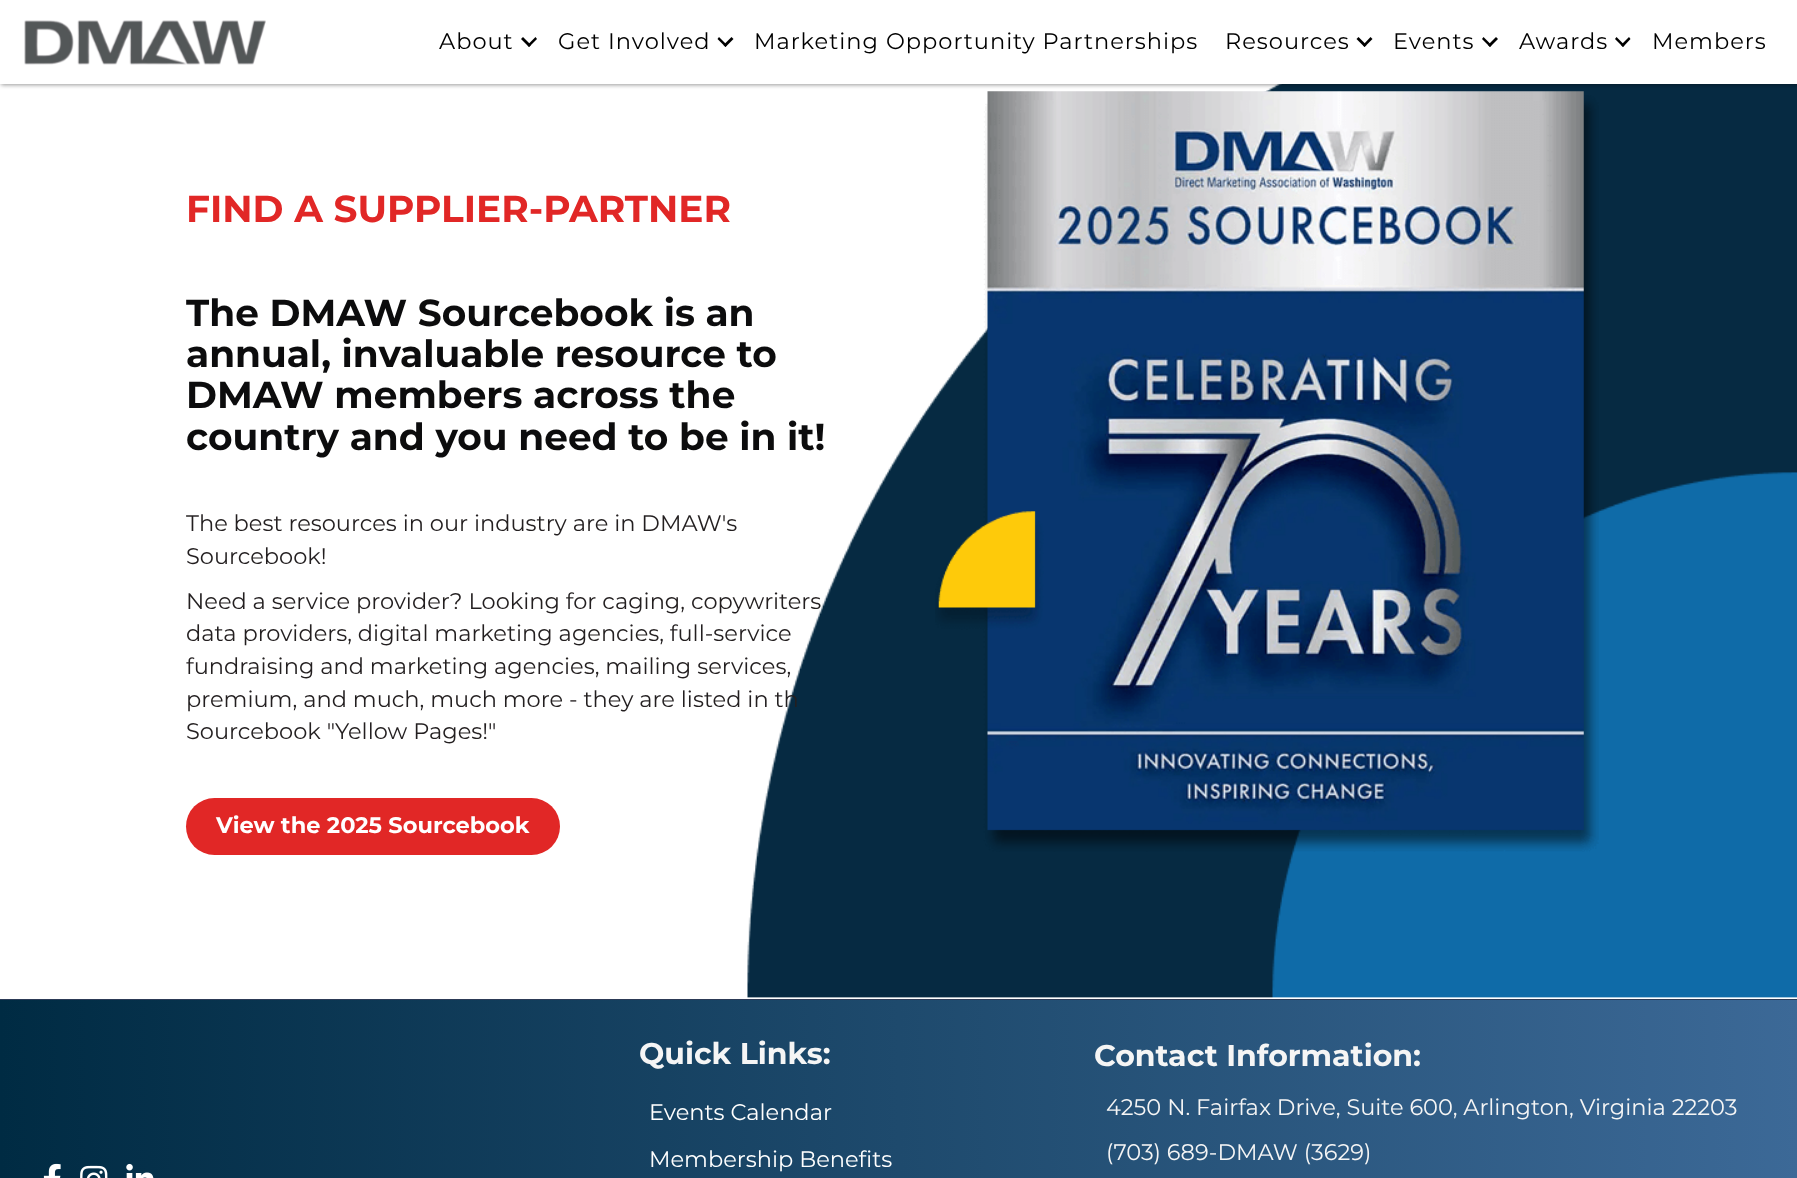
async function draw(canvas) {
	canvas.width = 1797;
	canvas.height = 1178;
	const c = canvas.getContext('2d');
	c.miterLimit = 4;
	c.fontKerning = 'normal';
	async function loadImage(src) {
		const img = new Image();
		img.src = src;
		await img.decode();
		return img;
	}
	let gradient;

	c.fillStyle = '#fff';
	c.fillRect(0, 0, 1797, 1178);
	c.drawImage(await loadImage('img2.png'), 747, 84, 1050, 914);
	c.drawImage(await loadImage('img3.png'), 935, 91, 664, 761);
	c.fillStyle = '#00000066';
	c.filter = 'blur(2px)';
	c.beginPath();
	c.rect(1, 1, 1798, 84);
	c.fill();
	c.filter = 'none';
	c.fillStyle = '#fff';
	c.fillRect(0, 0, 1797, 84);
	c.drawImage(await loadImage('img1.png'), 24, 20, 242, 45);
	c.letterSpacing = '1px';
	c.font = '22.5px Montserrat';
	c.fillStyle = '#000';
	c.fillText('About', 439, 49);
	c.beginPath();
	c.moveTo(535.5, 37);
	c.lineTo(537, 39);
	c.lineTo(529, 47);
	c.lineTo(527.5, 45);
	c.closePath();
	c.fill();
	c.beginPath();
	c.moveTo(523, 37);
	c.lineTo(531, 45);
	c.lineTo(529, 47);
	c.lineTo(521, 39);
	c.closePath();
	c.fill();
	c.fillText('Get Involved', 558, 49);
	c.beginPath();
	c.moveTo(731.5, 37);
	c.lineTo(733.5, 39);
	c.lineTo(725.5, 47);
	c.lineTo(723.5, 45);
	c.closePath();
	c.fill();
	c.beginPath();
	c.moveTo(719, 37);
	c.lineTo(727, 45);
	c.lineTo(725.5, 47);
	c.lineTo(717.5, 39);
	c.closePath();
	c.fill();
	c.fillText('Marketing Opportunity Partnerships', 754, 49);
	c.fillText('Resources', 1225, 49);
	c.beginPath();
	c.moveTo(1370.5, 37);
	c.lineTo(1372.5, 39);
	c.lineTo(1364.5, 47);
	c.lineTo(1363, 45);
	c.closePath();
	c.fill();
	c.beginPath();
	c.moveTo(1358.5, 37);
	c.lineTo(1366.5, 45);
	c.lineTo(1364.5, 47);
	c.lineTo(1356.5, 39);
	c.closePath();
	c.fill();
	c.fillText('Events', 1393, 49);
	c.beginPath();
	c.moveTo(1496, 37);
	c.lineTo(1498, 39);
	c.lineTo(1490, 47);
	c.lineTo(1488, 45);
	c.closePath();
	c.fill();
	c.beginPath();
	c.moveTo(1483.5, 37);
	c.lineTo(1491.5, 45);
	c.lineTo(1490, 47);
	c.lineTo(1482, 39);
	c.closePath();
	c.fill();
	c.fillText('Awards', 1519, 49);
	c.beginPath();
	c.moveTo(1629, 37);
	c.lineTo(1630.5, 39);
	c.lineTo(1623, 47);
	c.lineTo(1621, 45);
	c.closePath();
	c.fill();
	c.beginPath();
	c.moveTo(1616.5, 37);
	c.lineTo(1624.5, 45);
	c.lineTo(1623, 47);
	c.lineTo(1615, 39);
	c.closePath();
	c.fill();
	c.fillText('Members', 1652, 49);
	c.letterSpacing = '0px';
	c.font = 'bold 37.5px Montserrat';
	c.fillStyle = '#e12726';
	c.fillText('FIND A SUPPLIER-PARTNER', 186, 222);
	c.fillStyle = '#0c0c0d';
	for (const [text, x, y] of [
		['The DMAW Sourcebook is an', 186, 326],
		['annual, invaluable resource to', 186, 367],
		['DMAW members across the', 186, 408],
		['country and you need to be in it!', 186, 450],
	]) {
		c.fillText(text, x, y);
	}
	c.font = '22.5px Montserrat';
	c.fillStyle = '#231f20';
	for (const [text, x, y] of [
		['The best resources in our industry are in DMAW\'s', 186, 531],
		['Sourcebook!', 186, 564],
		['Need a service provider? Looking for caging, copywriters', 186, 609],
		['data providers, digital marketing agencies, full-service', 186, 641],
		['fundraising and marketing agencies, mailing services,', 186, 674],
		['premium, and much, much more - they are listed in th', 186, 707],
		['Sourcebook "Yellow Pages!"', 186, 739],
	]) {
		c.fillText(text, x, y);
	}
	c.fillStyle = '#e12726';
	c.beginPath();
	c.roundRect(186, 798, 374, 57, 28.5);
	c.fill();
	c.font = 'bold 22.5px Montserrat';
	c.fillStyle = '#fff';
	c.fillText('View the 2025 Sourcebook', 216, 833);
	gradient = c.createLinearGradient(0, 1126, 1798, 1126);
	gradient.addColorStop(0, '#002b43');
	gradient.addColorStop(1, '#3c6997');
	c.fillStyle = gradient;
	c.fillRect(0, 1000, 1797, 178);
	c.fillStyle = '#2c3a56';
	c.fillRect(0, 999, 1797, 1);
	c.font = 'bold 30px Montserrat';
	c.fillStyle = '#f5f5f5';
	c.fillText('Quick Links:', 639, 1064);
	c.font = '22.5px Montserrat';
	c.fillStyle = '#fff';
	c.fillText('Events Calendar', 649, 1120);
	c.fillText('Membership Benefits', 649, 1167);
	c.font = 'bold 30px Montserrat';
	c.fillStyle = '#f5f5f5';
	c.fillText('Contact Information:', 1094, 1066);
	c.font = '22.5px Montserrat';
	c.fillText('4250 N. Fairfax Drive, Suite 600, Arlington, Virginia 22203', 1106, 1115);
	c.fillText('(703) 689-DMAW (3629)', 1106, 1160);
	c.drawImage(await loadImage('img4.png'), 43, 1163, 18, 15);
	c.drawImage(await loadImage('img5.png'), 80, 1165, 28, 13);
	c.drawImage(await loadImage('img6.png'), 126, 1163, 28, 15);
}

draw(document.querySelector('canvas'));
